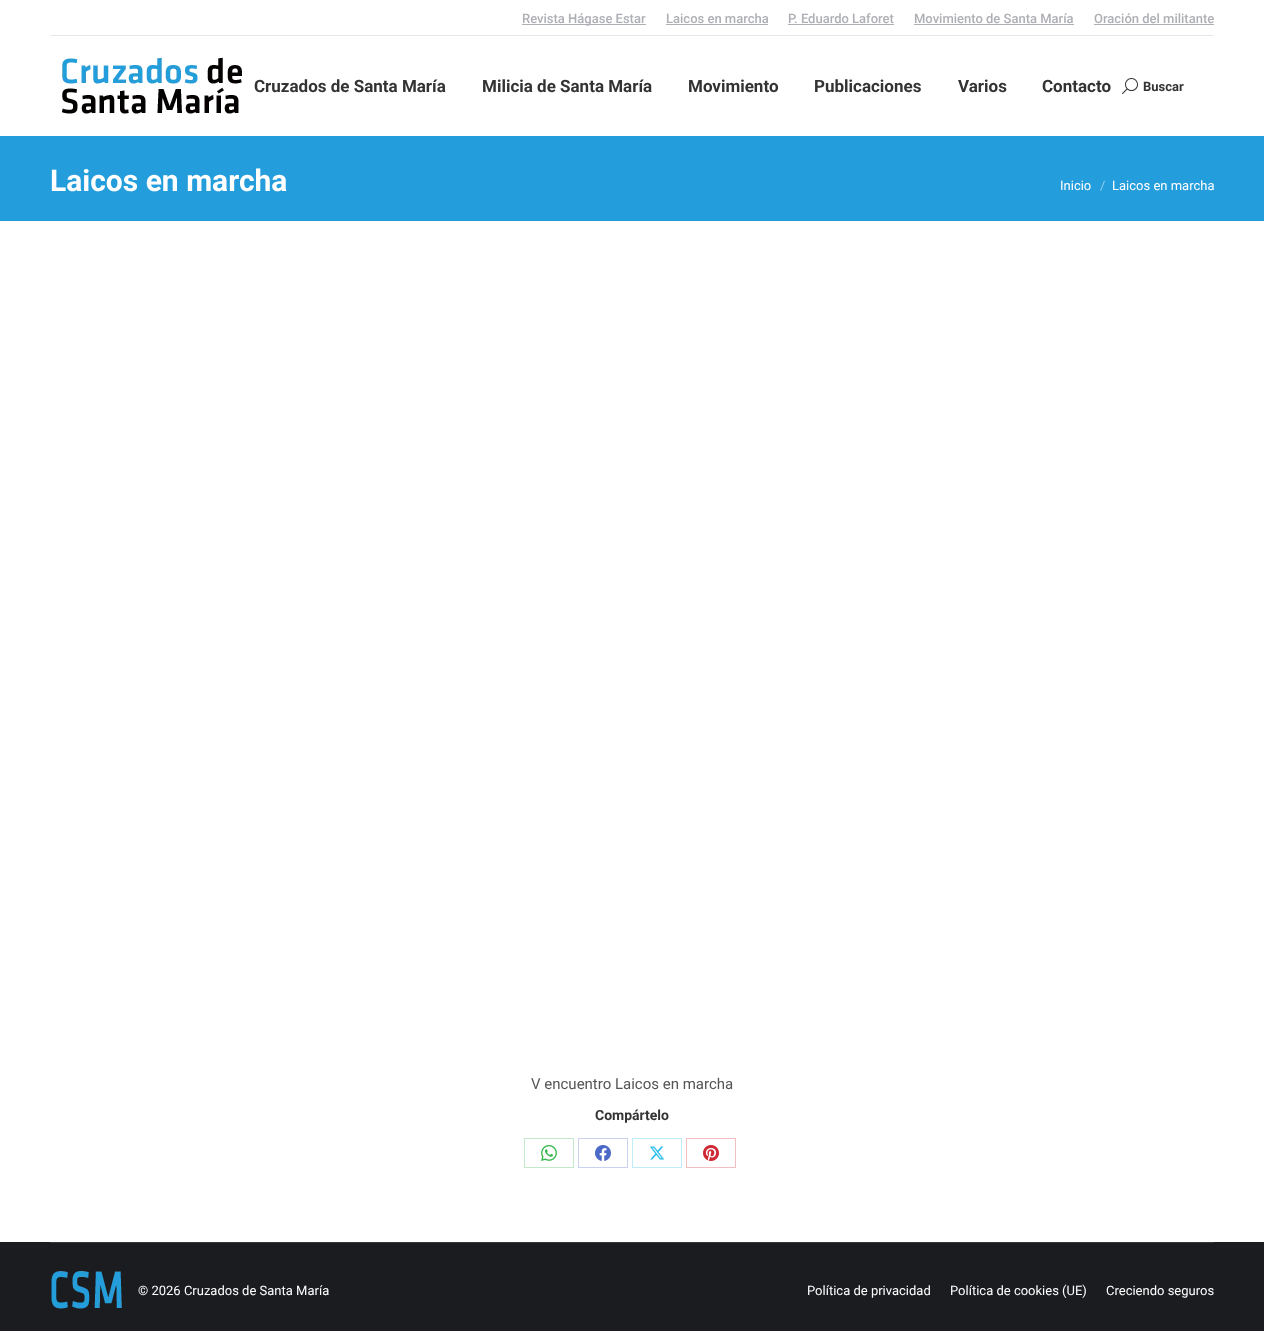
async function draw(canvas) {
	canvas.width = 1264;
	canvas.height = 1331;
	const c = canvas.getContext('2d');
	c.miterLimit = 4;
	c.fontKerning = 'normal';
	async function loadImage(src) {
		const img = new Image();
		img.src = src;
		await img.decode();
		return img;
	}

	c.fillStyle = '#fff';
	c.fillRect(0, 0, 1264, 1331);
	c.fillStyle = '#aeafb5';
	c.fillRect(522, 24, 124, 1);
	c.font = '500 13px Roboto';
	c.fillText('Revista Hágase Estar', 522, 23);
	c.fillText('Laicos en marcha', 666, 23);
	c.fillRect(666, 24, 102, 1);
	c.fillText('P. Eduardo Laforet', 788, 23);
	c.fillRect(788, 24, 106, 1);
	c.fillText('Movimiento de Santa María', 914, 23);
	c.fillRect(914, 24, 160, 1);
	c.fillText('Oración del militante', 1094, 23);
	c.fillRect(1094, 24, 120, 1);
	c.fillStyle = '#e7e7e7';
	c.fillRect(50, 35, 1164, 1);
	c.drawImage(await loadImage('img1.png'), 62, 57, 180, 57);
	c.font = 'bold 17px Roboto';
	c.fillStyle = '#333';
	for (const [text, x, y] of [
		['Cruzados de Santa María', 254, 92],
		['Milicia de Santa María', 482, 92],
		['Movimiento', 688, 92],
		['Publicaciones', 814, 92],
		['Varios', 958, 92],
		['Contacto', 1042, 92],
	]) {
		c.fillText(text, x, y);
	}
	c.drawImage(await loadImage('img2.png'), 1122, 78, 16, 16);
	c.font = 'bold 13px Roboto';
	c.fillText('Buscar', 1143, 91);
	c.fillStyle = '#239ddb';
	c.fillRect(0, 136, 1264, 85);
	c.font = 'bold 30px Roboto';
	c.fillStyle = '#fff';
	c.fillText('Laicos en marcha', 50, 191);
	c.font = '13px Roboto';
	c.fillText('Inicio', 1060, 190);
	c.fillStyle = '#91ceed';
	c.fillText('/', 1100, 190);
	c.fillStyle = '#fff';
	c.fillText('Laicos en marcha', 1112, 190);
	c.font = '15px Roboto';
	c.fillStyle = '#565554';
	c.fillText('V encuentro Laicos en marcha', 531, 1089);
	c.font = 'bold 14px Roboto';
	c.fillStyle = '#333';
	c.fillText('Compártelo', 595, 1120);
	c.strokeStyle = '#c3e9ca';
	c.strokeRect(524.5, 1138.5, 49, 29);
	c.drawImage(await loadImage('img3.png'), 541, 1145, 16, 16);
	c.strokeStyle = '#c9d2ee';
	c.strokeRect(578.5, 1138.5, 49, 29);
	c.drawImage(await loadImage('img4.png'), 595, 1145, 16, 16);
	c.strokeStyle = '#bfecf9';
	c.strokeRect(632.5, 1138.5, 49, 29);
	c.drawImage(await loadImage('img5.png'), 650, 1146, 15, 14);
	c.strokeStyle = '#f1bfc2';
	c.strokeRect(686.5, 1138.5, 49, 29);
	c.drawImage(await loadImage('img6.png'), 703, 1145, 16, 16);
	c.fillStyle = '#1a1c20';
	c.fillRect(0, 1242, 1264, 89);
	c.fillStyle = '#35373b';
	c.fillRect(50, 1242, 1164, 1);
	c.drawImage(await loadImage('img7.png'), 51, 1271, 71, 38);
	c.font = '13px Roboto';
	c.fillStyle = '#fff';
	for (const [text, x, y] of [
		['© 2026 Cruzados de Santa María', 138, 1295],
		['Política de privacidad', 807, 1295],
		['Política de cookies (UE)', 950, 1295],
		['Creciendo seguros', 1106, 1295],
	]) {
		c.fillText(text, x, y);
	}
}

draw(document.querySelector('canvas'));
